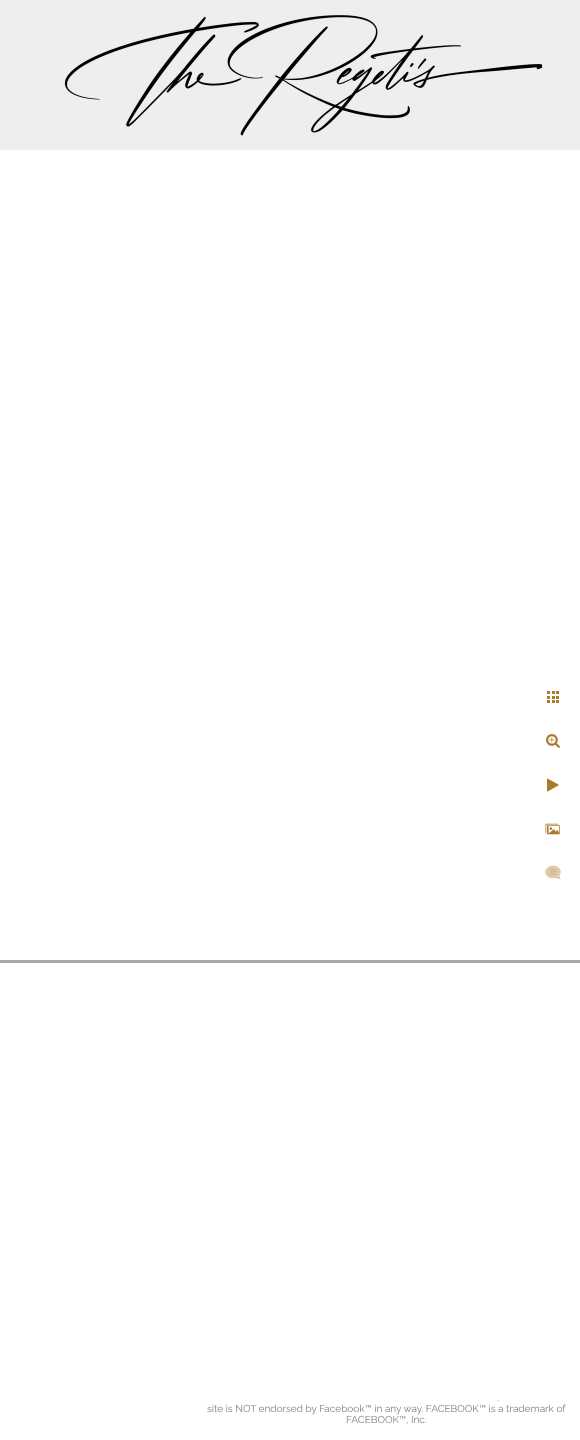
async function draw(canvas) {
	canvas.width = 580;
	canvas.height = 1440;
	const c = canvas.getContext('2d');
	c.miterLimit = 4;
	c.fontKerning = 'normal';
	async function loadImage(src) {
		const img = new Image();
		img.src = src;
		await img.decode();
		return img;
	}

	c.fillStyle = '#fff';
	c.fillRect(0, 0, 580, 1440);
	c.fillStyle = '#eee';
	c.fillRect(0, 0, 580, 150);
	c.drawImage(await loadImage('img1.png'), 64, 15, 479, 121);
	c.drawImage(await loadImage('img2.png'), 547, 691, 12, 12);
	c.drawImage(await loadImage('img3.png'), 546, 734, 14, 14);
	c.drawImage(await loadImage('img4.png'), 547, 778, 12, 14);
	c.drawImage(await loadImage('img5.png'), 545, 823, 15, 12);
	c.drawImage(await loadImage('img6.png'), 545, 865, 16, 15);
	c.fillStyle = '#a9a9a9';
	c.fillRect(0, 960, 580, 3);
	c.font = '100 10px Raleway';
	c.fillStyle = '#808080';
	for (const [text, x, y] of [
		['.', 497, 1401],
		['site is NOT endorsed by Facebook™ in any way. FACEBOOK™ is a trademark of', 207, 1412],
		['FACEBOOK™, Inc.', 346, 1423],
	]) {
		c.fillText(text, x, y);
	}
}

draw(document.querySelector('canvas'));
